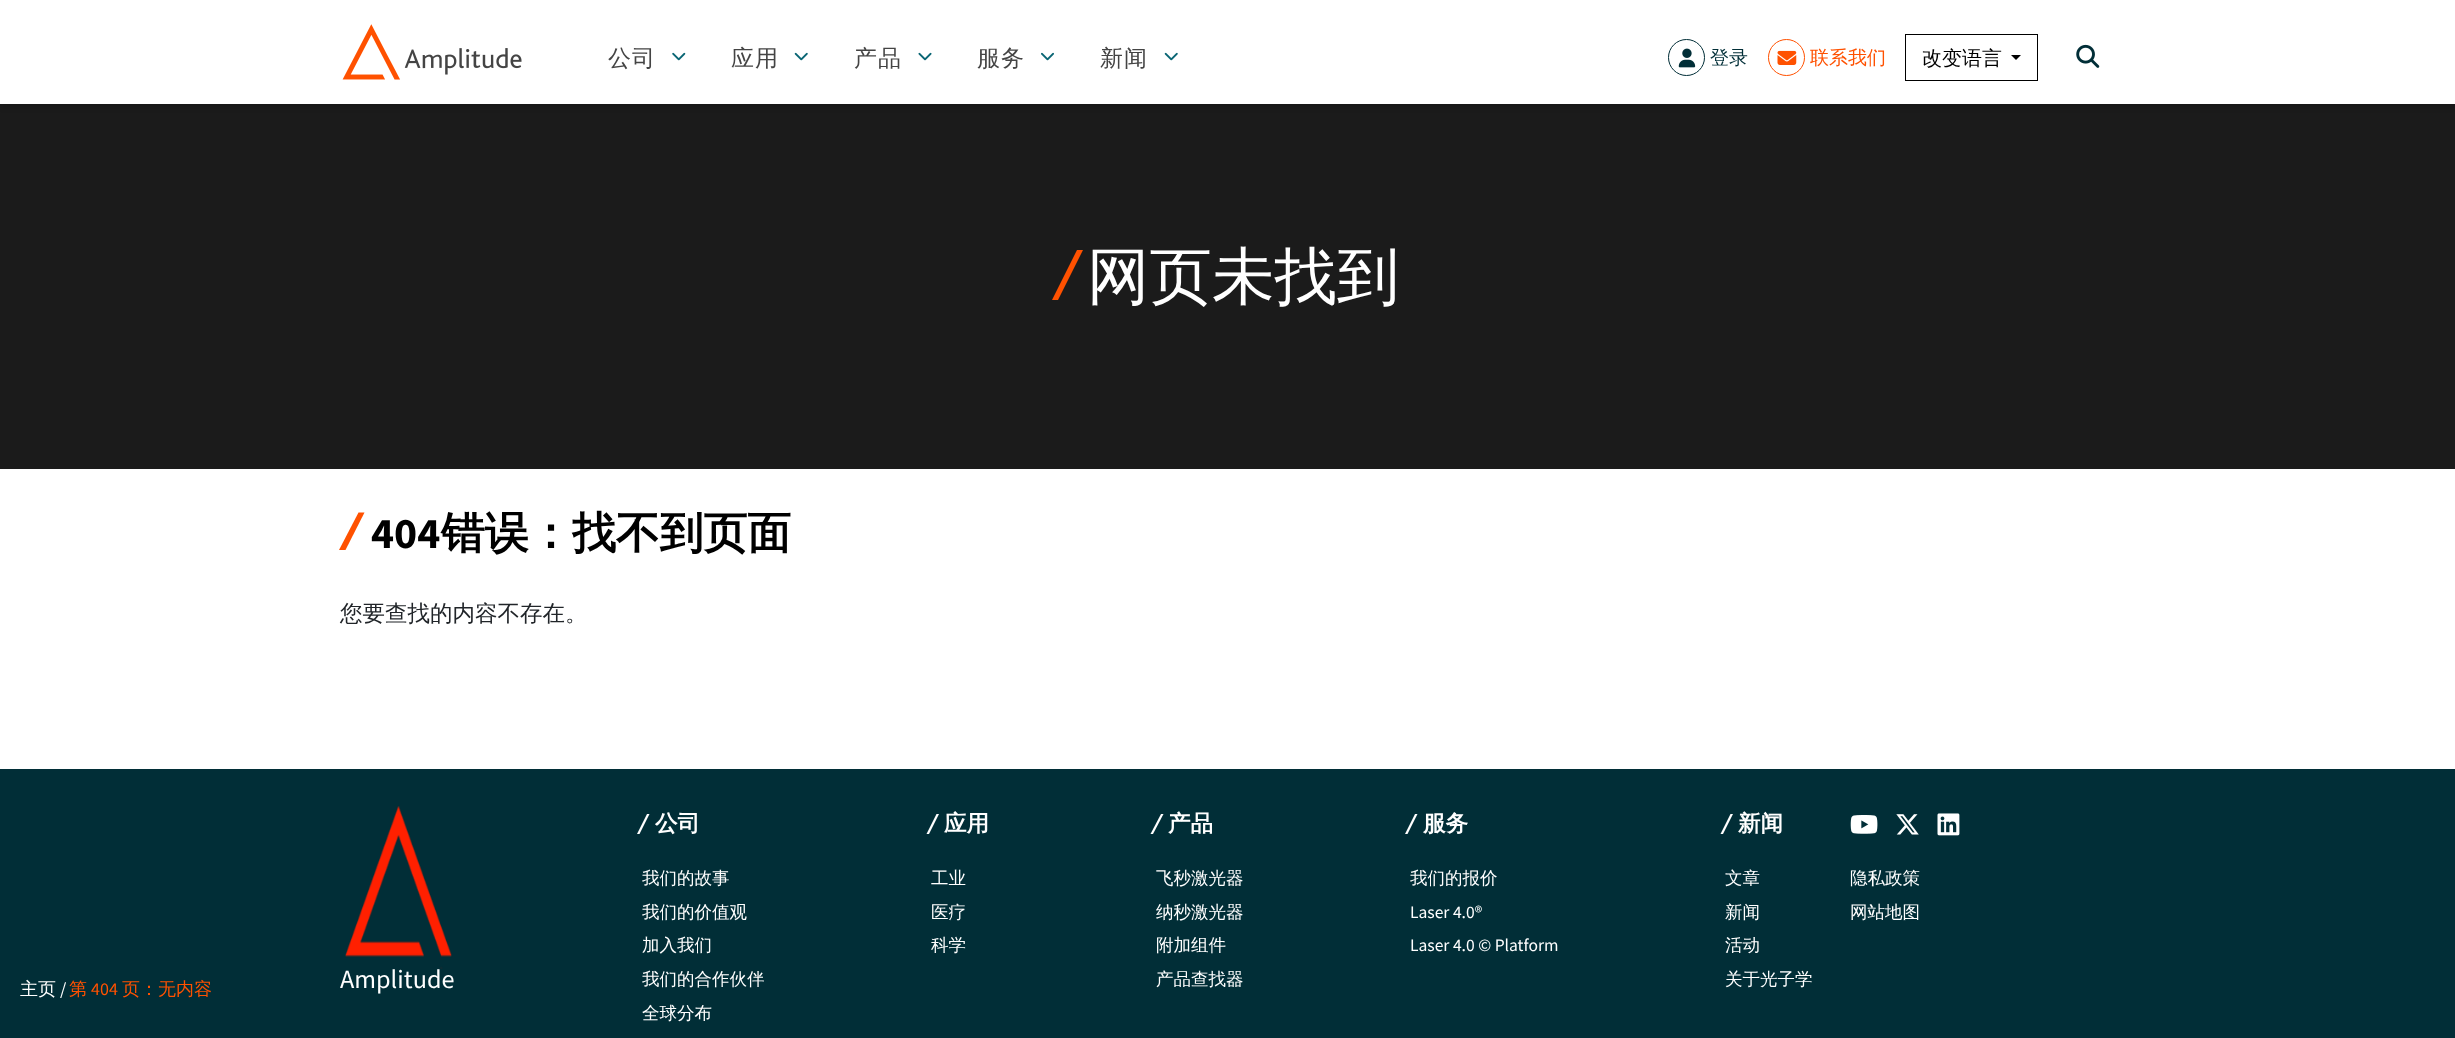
async function draw(canvas) {
	canvas.width = 2455;
	canvas.height = 1038;
	const c = canvas.getContext('2d');
	c.miterLimit = 4;
	c.fontKerning = 'normal';
	async function loadImage(src) {
		const img = new Image();
		img.src = src;
		await img.decode();
		return img;
	}

	c.fillStyle = '#fff';
	c.fillRect(0, 0, 2455, 1038);
	c.fillStyle = '#1b1b1b';
	c.fillRect(0, 104, 2455, 365);
	c.fillStyle = '#00000033';
	c.filter = 'blur(3px)';
	c.beginPath();
	c.rect(0, 3, 2455, 103);
	c.fill();
	c.filter = 'none';
	c.fillStyle = '#fff';
	c.fillRect(0, 0, 2455, 104);
	c.drawImage(await loadImage('img1.png'), 342, 24, 180, 56);
	c.letterSpacing = '1px';
	c.font = '500 23px WenQuanYi Zen Hei';
	c.fillStyle = '#444';
	c.fillText('公司', 608, 66);
	c.drawImage(await loadImage('img2.png'), 672, 52, 14, 9);
	c.fillText('应用', 731, 66);
	c.drawImage(await loadImage('img3.png'), 794, 52, 14, 9);
	c.fillText('产品', 854, 66);
	c.drawImage(await loadImage('img4.png'), 918, 52, 14, 9);
	c.fillText('服务', 977, 66);
	c.drawImage(await loadImage('img5.png'), 1041, 52, 13, 9);
	c.fillText('新闻', 1100, 66);
	c.drawImage(await loadImage('img3.png'), 1164, 52, 14, 9);
	c.beginPath();
	c.arc(1686.5, 57.5, 18, 0, 2 * Math.PI);
	c.strokeStyle = '#012e37';
	c.stroke();
	c.drawImage(await loadImage('img6.png'), 1678, 48, 18, 20);
	c.letterSpacing = '0px';
	c.font = '500 19px WenQuanYi Zen Hei';
	c.fillStyle = '#012e37';
	c.fillText('登录', 1710, 64);
	c.beginPath();
	c.arc(1786.5, 57.5, 18, 0, 2 * Math.PI);
	c.strokeStyle = '#ff5100';
	c.stroke();
	c.drawImage(await loadImage('img7.png'), 1777, 50, 20, 15);
	c.fillStyle = '#ff5100';
	c.fillText('联系我们', 1810, 64);
	c.strokeStyle = '#000';
	c.strokeRect(1905.5, 34.5, 132, 46);
	c.font = '500 20px WenQuanYi Zen Hei';
	c.fillStyle = '#000';
	c.fillText('改变语言', 1922, 65);
	c.beginPath();
	c.moveTo(2011, 55);
	c.lineTo(2021, 55);
	c.lineTo(2016, 60);
	c.closePath();
	c.fill();
	c.drawImage(await loadImage('img8.png'), 2076, 44, 24, 24);
	c.fillStyle = '#ff5100';
	c.beginPath();
	c.moveTo(1077, 250);
	c.lineTo(1083, 250);
	c.lineTo(1058, 300);
	c.lineTo(1052, 300);
	c.closePath();
	c.fill();
	c.font = '500 62.5px WenQuanYi Zen Hei';
	c.fillStyle = '#fff';
	c.fillText('网页未找到', 1087, 298);
	c.fillStyle = '#ff5100';
	c.beginPath();
	c.moveTo(358.5, 512.5);
	c.lineTo(364.5, 512.5);
	c.lineTo(345.5, 550);
	c.lineTo(339, 550);
	c.closePath();
	c.fill();
	c.font = 'bold 43.75px Source Sans Pro';
	c.fillStyle = '#000';
	c.fillText('404', 371, 548);
	c.font = 'bold 43.75px WenQuanYi Zen Hei';
	c.fillText('错误：找不到页面', 441, 548);
	c.font = '500 22.5px WenQuanYi Zen Hei';
	c.fillStyle = '#212529';
	c.fillText('您要查找的内容不存在。', 340, 621);
	c.fillStyle = '#012e37';
	c.fillRect(0, 769, 2455, 269);
	c.font = '500 18px WenQuanYi Zen Hei';
	c.fillStyle = '#fff';
	c.fillText('主页', 20, 995);
	c.font = '18px Source Sans Pro';
	c.fillText('/', 60, 995);
	c.font = '500 18px WenQuanYi Zen Hei';
	c.fillStyle = '#ff5100';
	c.fillText('第', 69, 995);
	c.font = '18px Source Sans Pro';
	c.fillText('404', 91, 995);
	c.font = '500 18px WenQuanYi Zen Hei';
	c.fillText('页：无内容', 122, 995);
	c.fillStyle = '#fff';
	c.beginPath();
	c.moveTo(647, 814);
	c.lineTo(649.5, 814);
	c.lineTo(639.5, 834);
	c.lineTo(637, 834);
	c.closePath();
	c.fill();
	c.font = 'bold 22.5px WenQuanYi Zen Hei';
	c.fillText('公司', 655, 831);
	c.font = '500 17.5px WenQuanYi Zen Hei';
	for (const [text, x, y] of [
		['我们的故事', 642, 884],
		['我们的价值观', 642, 918],
		['加入我们', 642, 951],
		['我们的合作伙伴', 642, 985],
		['全球分布', 642, 1019],
	]) {
		c.fillText(text, x, y);
	}
	c.beginPath();
	c.moveTo(936.5, 814);
	c.lineTo(939, 814);
	c.lineTo(929, 834);
	c.lineTo(926.5, 834);
	c.closePath();
	c.fill();
	c.font = 'bold 22.5px WenQuanYi Zen Hei';
	c.fillText('应用', 944, 831);
	c.font = '500 17.5px WenQuanYi Zen Hei';
	for (const [text, x, y] of [
		['工业', 931, 884],
		['医疗', 931, 918],
		['科学', 931, 951],
	]) {
		c.fillText(text, x, y);
	}
	c.beginPath();
	c.moveTo(1161, 814);
	c.lineTo(1163.5, 814);
	c.lineTo(1153, 834);
	c.lineTo(1150.5, 834);
	c.closePath();
	c.fill();
	c.font = 'bold 22.5px WenQuanYi Zen Hei';
	c.fillText('产品', 1168, 831);
	c.font = '500 17.5px WenQuanYi Zen Hei';
	for (const [text, x, y] of [
		['飞秒激光器', 1156, 884],
		['纳秒激光器', 1156, 918],
		['附加组件', 1156, 951],
		['产品查找器', 1156, 985],
	]) {
		c.fillText(text, x, y);
	}
	c.beginPath();
	c.moveTo(1415, 814);
	c.lineTo(1417.5, 814);
	c.lineTo(1407.5, 834);
	c.lineTo(1405, 834);
	c.closePath();
	c.fill();
	c.font = 'bold 22.5px WenQuanYi Zen Hei';
	c.fillText('服务', 1423, 831);
	c.font = '500 17.5px WenQuanYi Zen Hei';
	c.fillText('我们的报价', 1410, 884);
	c.font = '17.5px Source Sans Pro';
	c.fillText('Laser 4.0®', 1410, 918);
	c.fillText('Laser 4.0 © Platform', 1410, 951);
	c.beginPath();
	c.moveTo(1730.5, 814);
	c.lineTo(1733, 814);
	c.lineTo(1723, 834);
	c.lineTo(1720.5, 834);
	c.closePath();
	c.fill();
	c.font = 'bold 22.5px WenQuanYi Zen Hei';
	c.fillText('新闻', 1738, 831);
	c.font = '500 17.5px WenQuanYi Zen Hei';
	for (const [text, x, y] of [
		['文章', 1725, 884],
		['新闻', 1725, 918],
		['活动', 1725, 951],
		['关于光子学', 1725, 985],
	]) {
		c.fillText(text, x, y);
	}
	c.drawImage(await loadImage('img9.png'), 1850, 815, 28, 19);
	c.drawImage(await loadImage('img10.png'), 1896, 814, 23, 21);
	c.drawImage(await loadImage('img11.png'), 1937, 813, 23, 23);
	c.fillText('隐私政策', 1850, 884);
	c.fillText('网站地图', 1850, 918);
	c.drawImage(await loadImage('img12.png'), 345, 806, 107, 163);
	c.font = '26.25px Source Sans Pro';
	c.fillText('Amplitude', 340, 988);
}

draw(document.querySelector('canvas'));
